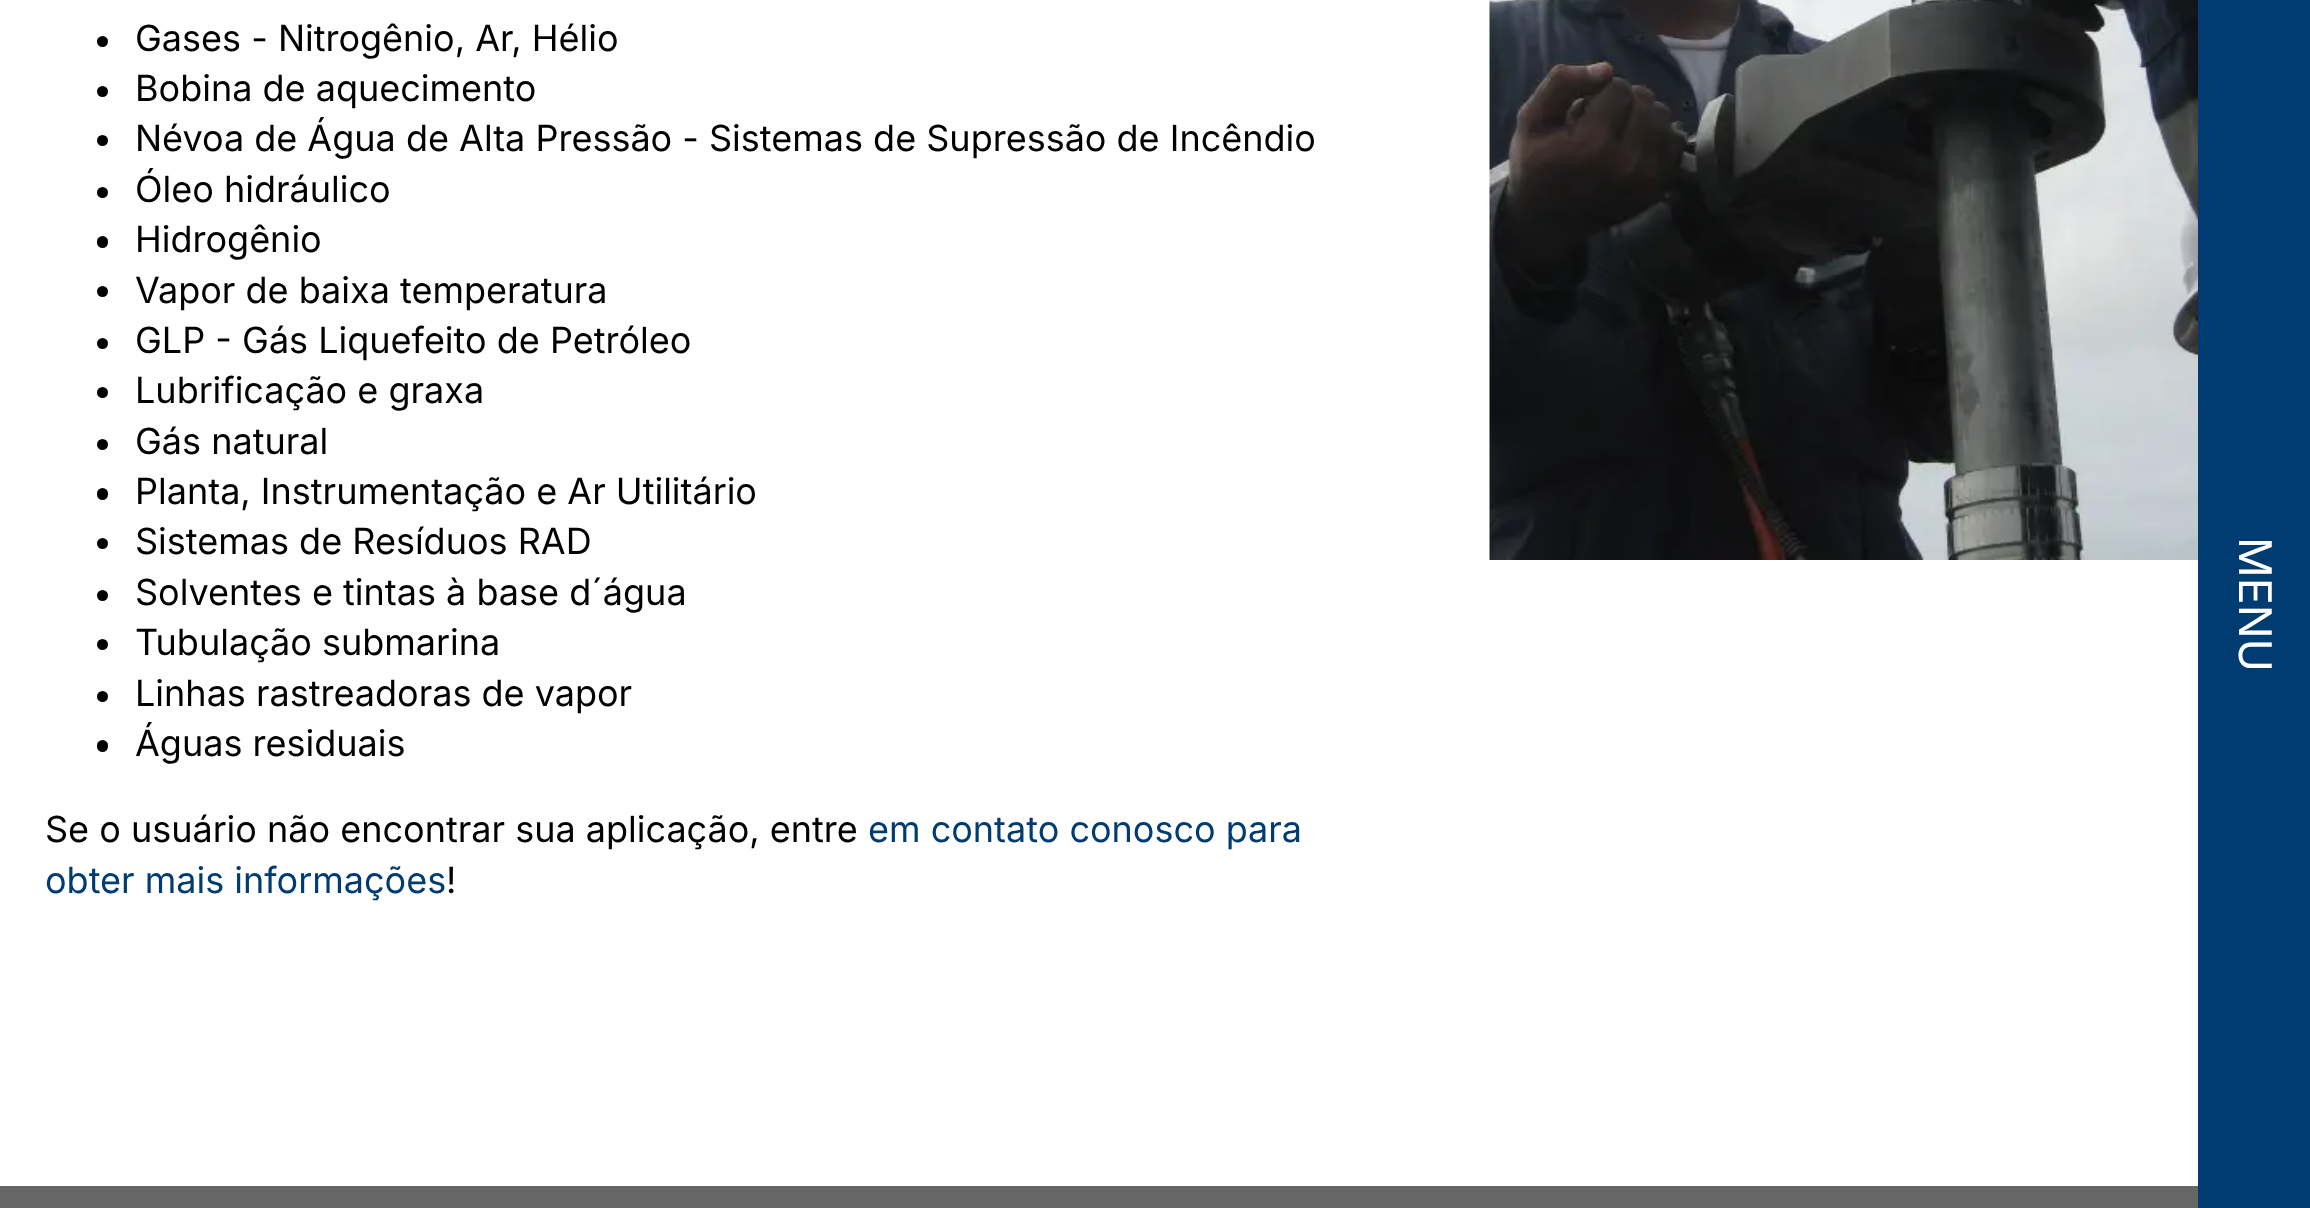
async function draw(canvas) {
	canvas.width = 2310;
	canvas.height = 1208;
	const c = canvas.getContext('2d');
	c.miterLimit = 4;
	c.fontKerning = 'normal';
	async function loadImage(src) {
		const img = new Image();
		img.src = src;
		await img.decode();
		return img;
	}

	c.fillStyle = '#fff';
	c.fillRect(0, 0, 2310, 1208);
	c.fillStyle = '#000';
	c.beginPath();
	c.arc(102.5, 41.5, 5.5, 0, 2 * Math.PI);
	c.fill();
	c.font = '36px Inter';
	c.fillText('Gases - Nitrogênio, Ar, Hélio', 135, 51);
	c.beginPath();
	c.arc(102.5, 91.5, 5.5, 0, 2 * Math.PI);
	c.fill();
	c.fillText('Bobina de aquecimento', 135, 101);
	c.beginPath();
	c.arc(102.5, 140.5, 5.5, 0, 2 * Math.PI);
	c.fill();
	c.fillText('Névoa de Água de Alta Pressão - Sistemas de Supressão de Incêndio', 135, 151);
	c.beginPath();
	c.arc(102.5, 192.5, 5.5, 0, 2 * Math.PI);
	c.fill();
	c.fillText('Óleo hidráulico', 135, 202);
	c.beginPath();
	c.roundRect(97, 236, 11, 12, 5.5);
	c.fill();
	c.fillText('Hidrogênio', 135, 252);
	c.beginPath();
	c.arc(102.5, 291.5, 5.5, 0, 2 * Math.PI);
	c.fill();
	c.fillText('Vapor de baixa temperatura', 135, 303);
	c.beginPath();
	c.arc(102.5, 343.5, 5.5, 0, 2 * Math.PI);
	c.fill();
	c.fillText('GLP - Gás Liquefeito de Petróleo', 135, 353);
	c.beginPath();
	c.arc(102.5, 392.5, 5.5, 0, 2 * Math.PI);
	c.fill();
	c.fillText('Lubrificação e graxa', 135, 403);
	c.beginPath();
	c.arc(102.5, 444.5, 5.5, 0, 2 * Math.PI);
	c.fill();
	c.fillText('Gás natural', 135, 454);
	c.beginPath();
	c.roundRect(97, 488, 11, 12, 5.5);
	c.fill();
	c.fillText('Planta, Instrumentação e Ar Utilitário', 135, 504);
	c.beginPath();
	c.arc(102.5, 543.5, 5.5, 0, 2 * Math.PI);
	c.fill();
	c.fillText('Sistemas de Resíduos RAD', 135, 554);
	c.beginPath();
	c.arc(102.5, 595.5, 5.5, 0, 2 * Math.PI);
	c.fill();
	c.fillText('Solventes e tintas à base d´água', 135, 605);
	c.beginPath();
	c.arc(102.5, 644.5, 5.5, 0, 2 * Math.PI);
	c.fill();
	c.fillText('Tubulação submarina', 135, 655);
	c.beginPath();
	c.arc(102.5, 696.5, 5.5, 0, 2 * Math.PI);
	c.fill();
	c.fillText('Linhas rastreadoras de vapor', 135, 706);
	c.beginPath();
	c.roundRect(97, 740, 11, 12, 5.5);
	c.fill();
	c.fillText('Águas residuais', 135, 756);
	c.fillText('Se o usuário não encontrar sua aplicação, entre', 45, 842);
	c.fillStyle = '#003c71';
	c.fillText('em contato conosco para', 868, 842);
	c.fillText('obter mais informações', 45, 893);
	c.fillStyle = '#000';
	c.fillText('!', 446, 893);
	c.drawImage(await loadImage('img1.png'), 1489, 0, 709, 560);
	c.fillStyle = '#003c71';
	c.fillRect(2198, 0, 112, 1208);
	c.font = '45px Inter';
	c.fillStyle = '#fff';
	c.save();
	c.translate(2239, 537);
	c.rotate(90 * Math.PI / 180);
	c.fillText('MENU', 0, 0);
	c.restore();
	c.fillStyle = '#666';
	c.fillRect(0, 1186, 2198, 22);
}

draw(document.querySelector('canvas'));
